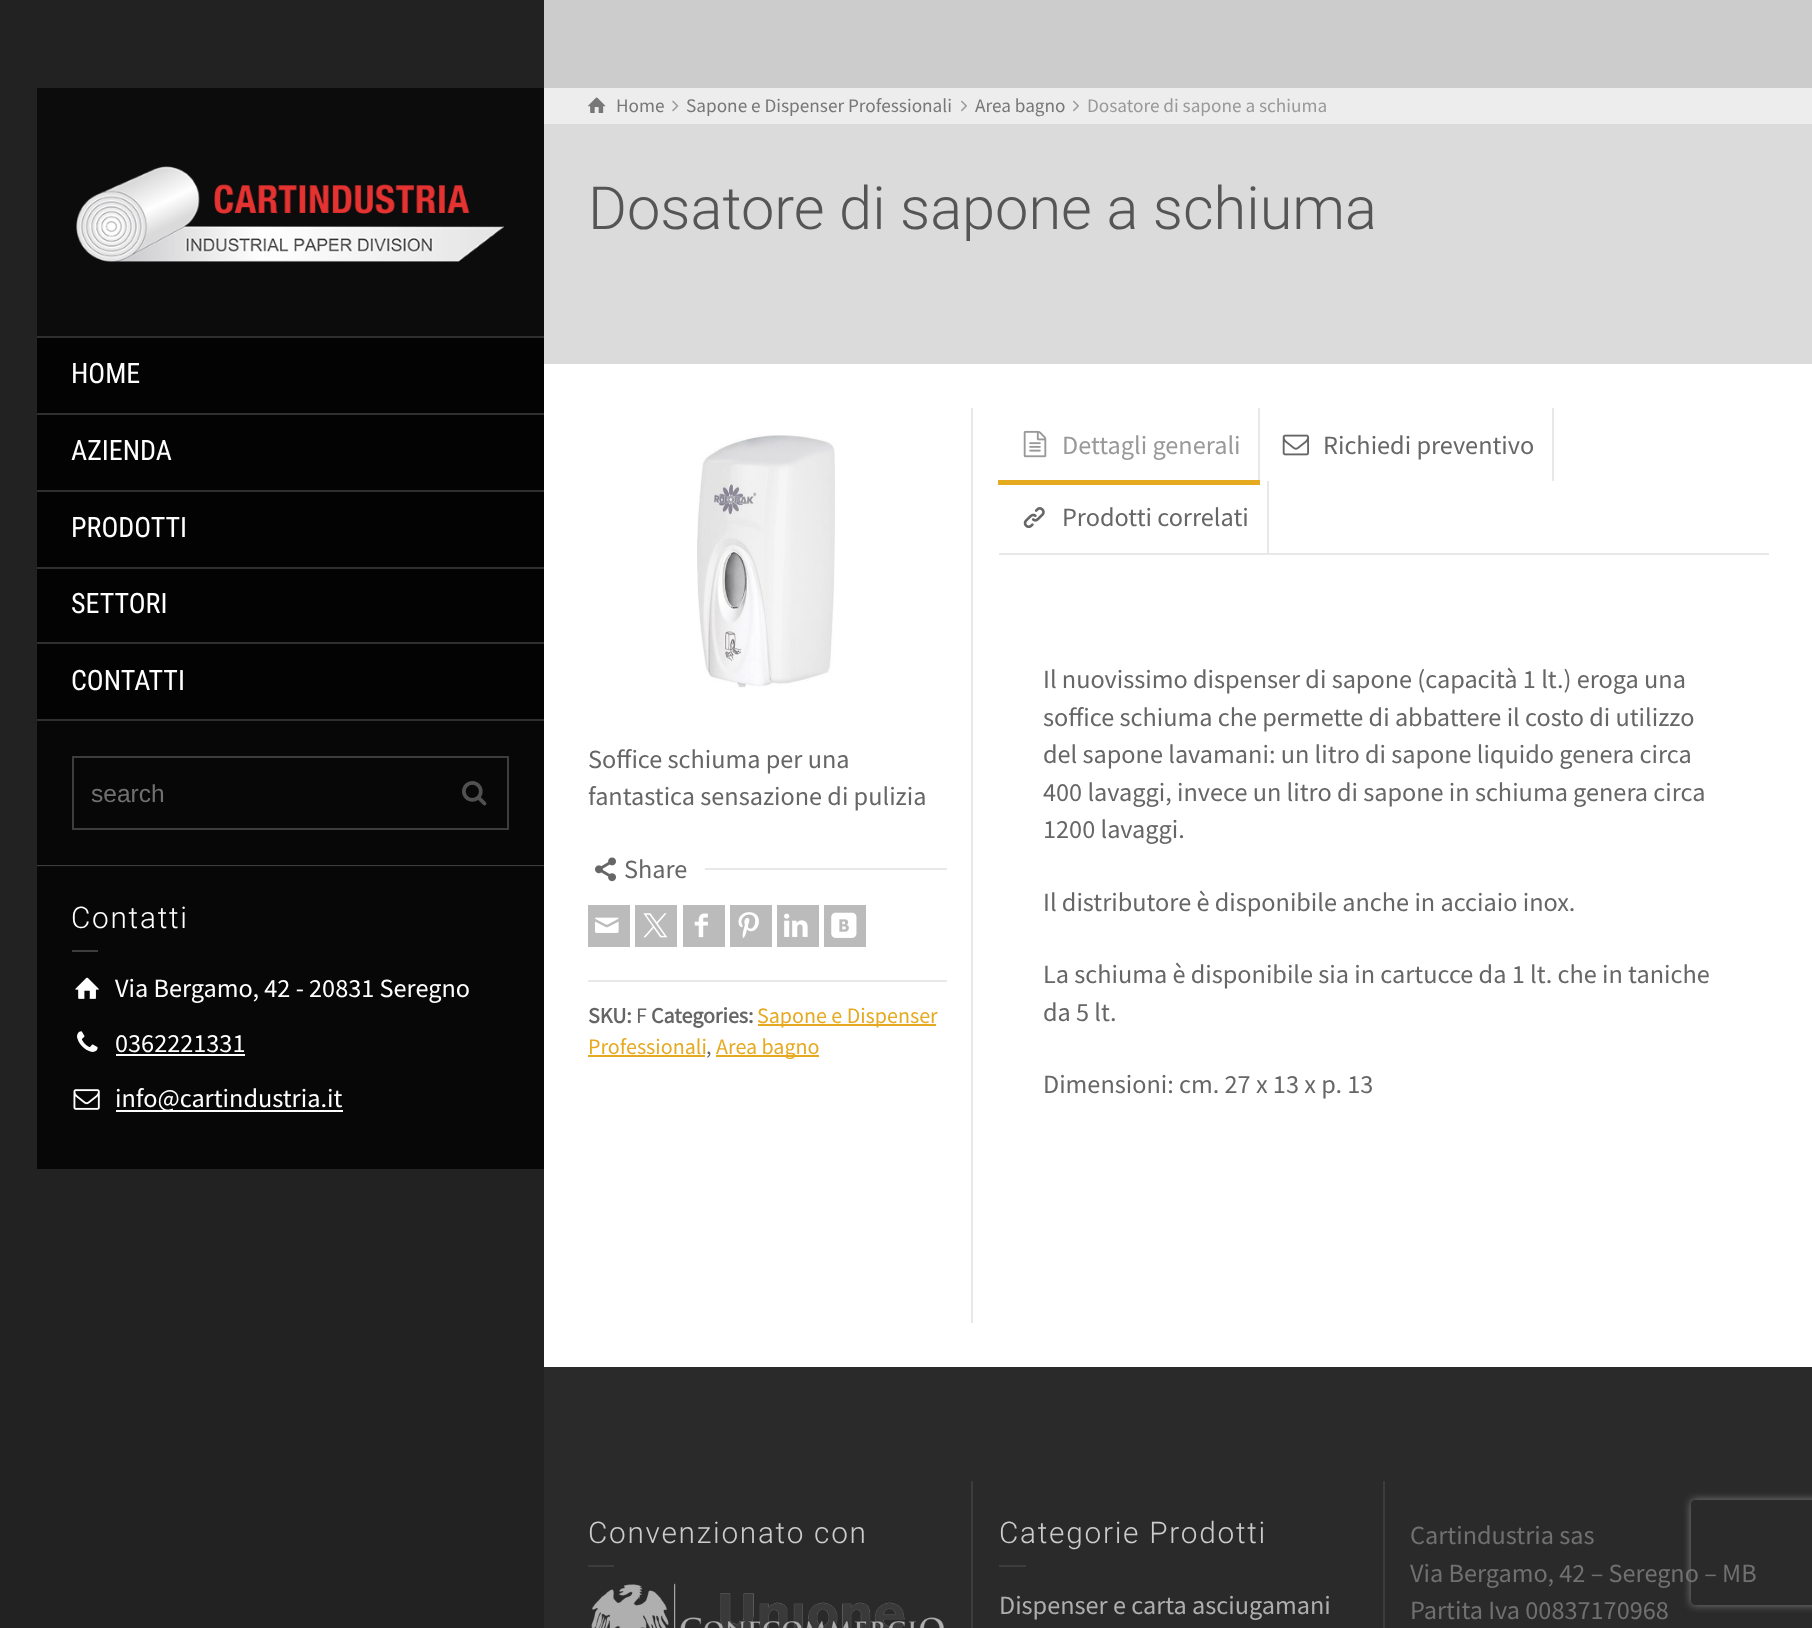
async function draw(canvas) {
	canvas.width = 1812;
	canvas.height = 1628;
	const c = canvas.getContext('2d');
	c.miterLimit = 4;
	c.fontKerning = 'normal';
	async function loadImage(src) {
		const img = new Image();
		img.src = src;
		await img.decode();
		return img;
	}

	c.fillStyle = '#ccc';
	c.fillRect(0, 0, 1812, 1628);
	for (const [x, y, w, h, color] of [
		[0, 0, 544, 1628, '#222'],
		[37, 867, 507, 302, '#070707'],
		[37, 88, 507, 248, '#0c0c0c'],
		[37, 336, 507, 2, '#2f2f2f'],
	]) {
		c.fillStyle = color;
		c.fillRect(x, y, w, h);
	}
	c.drawImage(await loadImage('img1.png'), 76, 166, 428, 96);
	c.fillStyle = '#030303';
	c.fillRect(37, 338, 507, 75);
	c.fillStyle = '#2f2f2f';
	c.fillRect(37, 413, 507, 2);
	c.font = '28px Roboto Condensed';
	c.fillStyle = '#fff';
	c.fillText('HOME', 71, 383);
	c.fillStyle = '#030303';
	c.fillRect(37, 415, 507, 75);
	c.fillStyle = '#2f2f2f';
	c.fillRect(37, 490, 507, 2);
	c.fillStyle = '#fff';
	c.fillText('AZIENDA', 71, 460);
	c.fillStyle = '#030303';
	c.fillRect(37, 492, 507, 75);
	c.fillStyle = '#2f2f2f';
	c.fillRect(37, 567, 507, 2);
	c.fillStyle = '#fff';
	c.fillText('PRODOTTI', 71, 537);
	c.fillStyle = '#030303';
	c.fillRect(37, 569, 507, 73);
	c.fillStyle = '#2f2f2f';
	c.fillRect(37, 642, 507, 2);
	c.fillStyle = '#fff';
	c.fillText('SETTORI', 71, 613);
	c.fillStyle = '#030303';
	c.fillRect(37, 644, 507, 75);
	c.fillStyle = '#2f2f2f';
	c.fillRect(37, 719, 507, 2);
	c.fillStyle = '#fff';
	c.fillText('CONTATTI', 71, 690);
	for (const [x, y, w, h, color] of [
		[37, 721, 507, 144, '#070707'],
		[37, 865, 507, 1, '#3d3d3d'],
		[37, 866, 507, 1, '#0c0c0c'],
	]) {
		c.fillStyle = color;
		c.fillRect(x, y, w, h);
	}
	c.strokeStyle = '#3d3d3d';
	c.lineWidth = 2;
	c.strokeRect(73, 757, 435, 72);
	c.font = '24.5px Liberation Sans';
	c.fillStyle = '#707070';
	c.fillText('search', 91, 802);
	c.drawImage(await loadImage('img2.png'), 462, 781, 25, 25);
	c.letterSpacing = '1.75px';
	c.font = '300 29.75px Roboto';
	c.fillStyle = '#fff';
	c.fillText('Contatti', 71, 928);
	c.fillStyle = '#3d3d3d';
	c.fillRect(72, 950, 26, 2);
	c.drawImage(await loadImage('img3.png'), 75, 977, 24, 22);
	c.letterSpacing = '0px';
	c.font = '26.25px Source Sans Pro';
	c.fillStyle = '#fff';
	c.fillText('Via Bergamo, 42 - 20831 Seregno', 115, 997);
	c.drawImage(await loadImage('img4.png'), 77, 1031, 21, 21);
	c.fillText('0362221331', 115, 1052);
	c.fillRect(116, 1054, 129, 2);
	c.drawImage(await loadImage('img5.png'), 73, 1089, 27, 21);
	c.fillRect(116, 1110, 227, 2);
	c.fillText('info@cartindustria.it', 115, 1107);
	c.fillStyle = '#dbdbdb';
	c.fillRect(544, 124, 1268, 240);
	c.fillStyle = '#ededed';
	c.fillRect(544, 88, 1268, 36);
	c.drawImage(await loadImage('img6.png'), 588, 97, 18, 16);
	c.font = '19.25px Source Sans Pro';
	c.fillStyle = '#777';
	c.fillText('Home', 616, 112);
	c.drawImage(await loadImage('img7.png'), 672, 100, 7, 12);
	c.fillText('Sapone e Dispenser Professionali', 686, 112);
	c.drawImage(await loadImage('img8.png'), 961, 100, 6, 12);
	c.fillText('Area bagno', 975, 112);
	c.drawImage(await loadImage('img8.png'), 1073, 100, 6, 12);
	c.fillStyle = '#999';
	c.fillText('Dosatore di sapone a schiuma', 1087, 112);
	c.font = '300 59.5px Roboto';
	c.fillStyle = '#555';
	c.fillText('Dosatore di sapone a schiuma', 588, 229);
	c.fillStyle = '#fff';
	c.fillRect(544, 364, 1268, 1003);
	c.drawImage(await loadImage('img9.png'), 697, 435, 138, 253);
	c.font = '26.25px Source Sans Pro';
	c.fillStyle = '#666';
	c.fillText('Soffice schiuma per una', 588, 768);
	c.fillText('fantastica sensazione di pulizia', 588, 805);
	c.drawImage(await loadImage('img10.png'), 595, 857, 21, 25);
	c.fillText('Share', 624, 878);
	c.fillStyle = '#e8e8e8';
	c.fillRect(705, 868, 242, 2);
	c.fillStyle = '#bbb';
	c.fillRect(588, 905, 42, 42);
	c.drawImage(await loadImage('img11.png'), 595, 917, 24, 16);
	c.fillRect(635, 905, 42, 42);
	c.drawImage(await loadImage('img12.png'), 643, 913, 25, 25);
	c.fillRect(683, 905, 42, 42);
	c.drawImage(await loadImage('img13.png'), 694, 913, 14, 25);
	c.fillRect(730, 905, 42, 42);
	c.drawImage(await loadImage('img14.png'), 738, 912, 21, 26);
	c.fillRect(777, 905, 42, 42);
	c.drawImage(await loadImage('img15.png'), 784, 913, 24, 24);
	c.fillRect(824, 905, 42, 42);
	c.drawImage(await loadImage('img16.png'), 831, 912, 26, 26);
	c.fillStyle = '#e8e8e8';
	c.fillRect(588, 980, 359, 2);
	c.font = 'bold 22px Source Sans Pro';
	c.fillStyle = '#666';
	c.fillText('SKU:', 588, 1023);
	c.font = '22px Source Sans Pro';
	c.fillText('F', 636, 1023);
	c.font = 'bold 22px Source Sans Pro';
	c.fillText('Categories:', 651, 1023);
	c.fillStyle = '#e6aa21';
	c.fillRect(758, 1024, 178, 2);
	c.font = '22px Source Sans Pro';
	c.fillText('Sapone e Dispenser', 757, 1023);
	c.fillText('Professionali', 588, 1054);
	c.fillStyle = '#666';
	c.fillText(',', 706, 1054);
	c.fillStyle = '#e6aa21';
	c.fillRect(588, 1055, 117, 2);
	c.fillRect(716, 1055, 103, 2);
	c.fillText('Area bagno', 716, 1054);
	for (const [x, y, w, h, color] of [
		[971, 408, 2, 915, '#e8e8e8'],
		[999, 553, 770, 2, '#e8e8e8'],
		[1258, 408, 2, 73, '#e8e8e8'],
	]) {
		c.fillStyle = color;
		c.fillRect(x, y, w, h);
	}
	c.drawImage(await loadImage('img17.png'), 1023, 430, 24, 28);
	c.font = '26.25px Source Sans Pro';
	c.fillStyle = '#999';
	c.fillText('Dettagli generali', 1062, 454);
	c.fillStyle = '#e6aa21';
	c.fillRect(998, 480, 262, 5);
	c.fillStyle = '#e8e8e8';
	c.fillRect(1552, 408, 2, 73);
	c.drawImage(await loadImage('img18.png'), 1282, 434, 27, 22);
	c.fillStyle = '#666';
	c.fillText('Richiedi preventivo', 1323, 454);
	c.fillStyle = '#e8e8e8';
	c.fillRect(1267, 481, 2, 72);
	c.drawImage(await loadImage('img19.png'), 1023, 507, 22, 22);
	c.fillStyle = '#666';
	for (const [text, x, y] of [
		['Prodotti correlati', 1062, 526],
		['Il nuovissimo dispenser di sapone (capacità 1 lt.) eroga una', 1043, 688],
		['soffice schiuma che permette di abbattere il costo di utilizzo', 1043, 726],
		['del sapone lavamani: un litro di sapone liquido genera circa', 1043, 763],
		['400 lavaggi, invece un litro di sapone in schiuma genera circa', 1043, 801],
		['1200 lavaggi.', 1043, 838],
		['Il distributore è disponibile anche in acciaio inox.', 1043, 911],
		['La schiuma è disponibile sia in cartucce da 1 lt. che in taniche', 1043, 983],
		['da 5 lt.', 1043, 1021],
		['Dimensioni: cm. 27 x 13 x p. 13', 1043, 1093],
	]) {
		c.fillText(text, x, y);
	}
	c.fillStyle = '#2a2a2a';
	c.fillRect(544, 1367, 1268, 261);
	c.letterSpacing = '1.75px';
	c.font = '300 29.75px Roboto';
	c.fillStyle = '#ccc';
	c.fillText('Convenzionato con', 588, 1543);
	c.fillStyle = '#3c3c3c';
	c.fillRect(588, 1565, 26, 2);
	c.drawImage(await loadImage('img20.png'), 591, 1583, 353, 45);
	c.fillRect(971, 1481, 2, 147);
	c.fillStyle = '#ccc';
	c.fillText('Categorie Prodotti', 999, 1543);
	c.fillStyle = '#3c3c3c';
	c.fillRect(999, 1565, 27, 2);
	c.letterSpacing = '0px';
	c.font = '26.25px Source Sans Pro';
	c.fillStyle = '#aeaeae';
	c.fillText('Dispenser e carta asciugamani', 999, 1614);
	c.fillStyle = '#3c3c3c';
	c.fillRect(1383, 1481, 2, 147);
	c.fillStyle = '#707070';
	for (const [text, x, y] of [
		['Cartindustria sas', 1410, 1544],
		['Via Bergamo, 42 – Seregno – MB', 1410, 1582],
		['Partita Iva 00837170968', 1410, 1619],
	]) {
		c.fillText(text, x, y);
	}
	c.save();
	c.beginPath();
	c.moveTo(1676, 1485);
	c.lineTo(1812, 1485);
	c.lineTo(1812, 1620);
	c.lineTo(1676, 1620);
	c.closePath();
	c.moveTo(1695, 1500);
	c.lineTo(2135, 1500);
	c.bezierCurveTo(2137, 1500, 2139, 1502, 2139, 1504);
	c.lineTo(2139, 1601);
	c.bezierCurveTo(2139, 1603, 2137, 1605, 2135, 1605);
	c.lineTo(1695, 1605);
	c.bezierCurveTo(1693, 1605, 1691, 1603, 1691, 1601);
	c.lineTo(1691, 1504);
	c.bezierCurveTo(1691, 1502, 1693, 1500, 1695, 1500);
	c.closePath();
	c.clip('evenodd');
	c.fillStyle = '#808080';
	c.filter = 'blur(4.5px)';
	c.beginPath();
	c.roundRect(1691, 1500, 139, 105, 4);
	c.fill();
	c.filter = 'none';
	c.restore();
}

draw(document.querySelector('canvas'));
